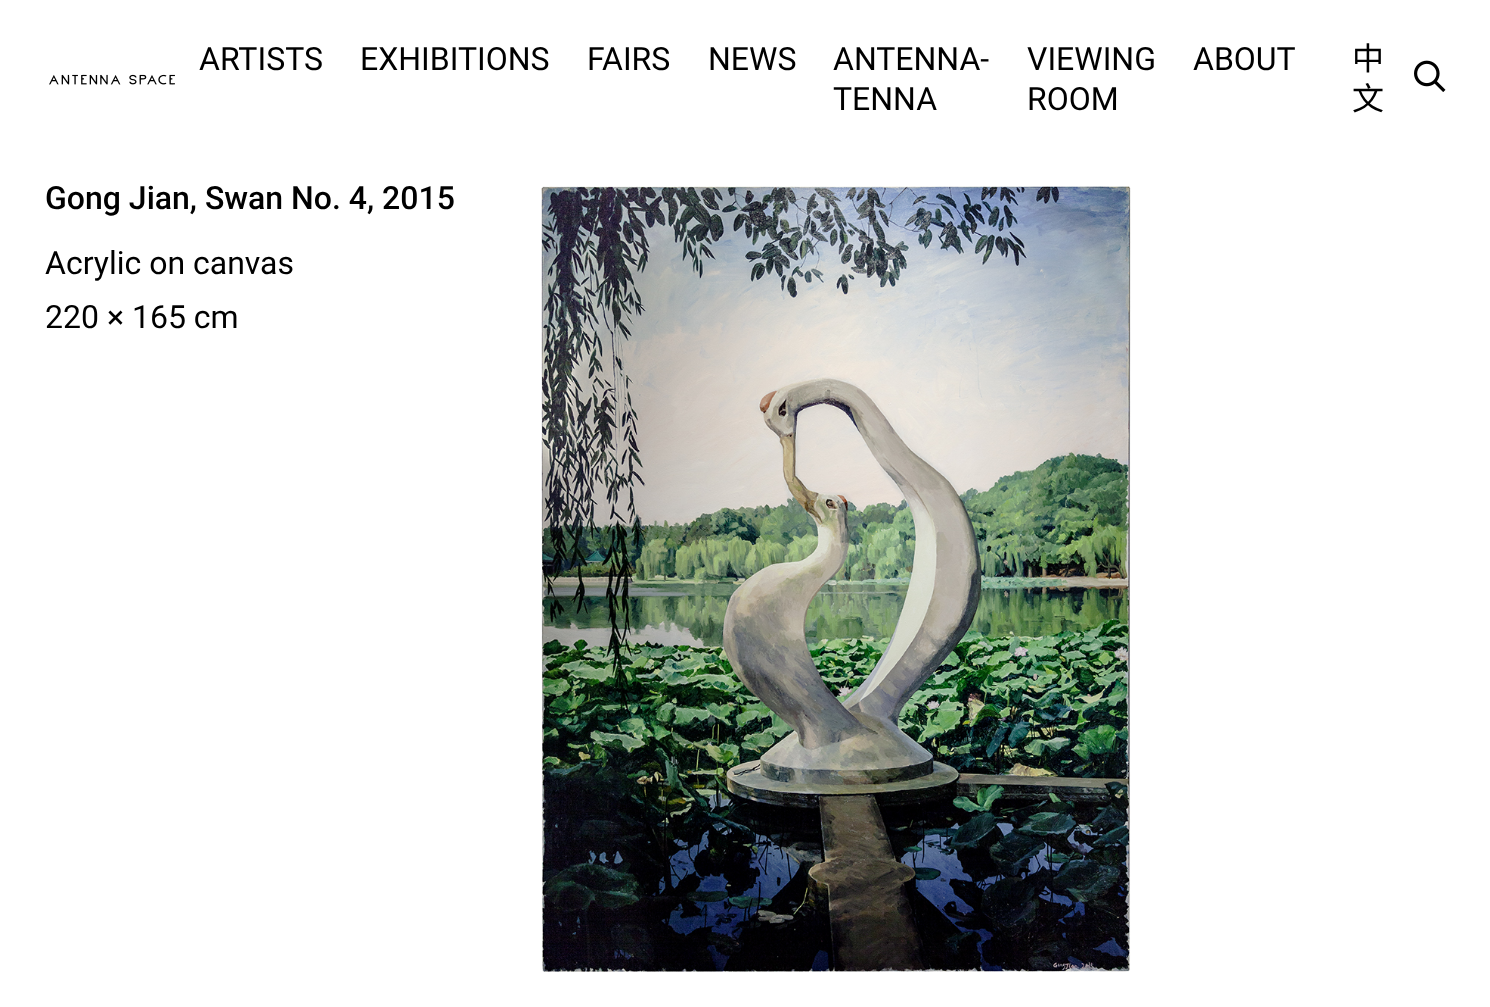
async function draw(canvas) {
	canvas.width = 1490;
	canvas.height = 1007;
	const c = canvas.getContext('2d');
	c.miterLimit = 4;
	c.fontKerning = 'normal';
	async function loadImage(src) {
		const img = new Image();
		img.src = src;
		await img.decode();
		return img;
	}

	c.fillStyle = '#fff';
	c.fillRect(0, 0, 1490, 1007);
	c.drawImage(await loadImage('img1.png'), 49, 74, 126, 11);
	c.font = '32px Roboto';
	c.fillStyle = '#000';
	for (const [text, x, y] of [
		['ARTISTS', 199, 70],
		['EXHIBITIONS', 360, 70],
		['FAIRS', 587, 70],
		['NEWS', 708, 70],
		['ANTENNA-', 833, 70],
		['TENNA', 833, 110],
		['VIEWING', 1027, 70],
		['ROOM', 1027, 110],
		['ABOUT', 1193, 70],
	]) {
		c.fillText(text, x, y);
	}
	c.font = '32px Noto Sans SC';
	c.fillText('中', 1352, 70);
	c.fillText('文', 1352, 110);
	c.drawImage(await loadImage('img2.png'), 1414, 60, 32, 32);
	c.font = '500 32px Roboto';
	c.fillText('Gong Jian, Swan No. 4, 2015', 45, 209);
	c.font = '32px Roboto';
	c.fillText('Acrylic on canvas', 45, 274);
	c.fillText('220 × 165 cm', 45, 328);
	c.drawImage(await loadImage('img3.png'), 541, 186, 590, 786);
}

draw(document.querySelector('canvas'));
